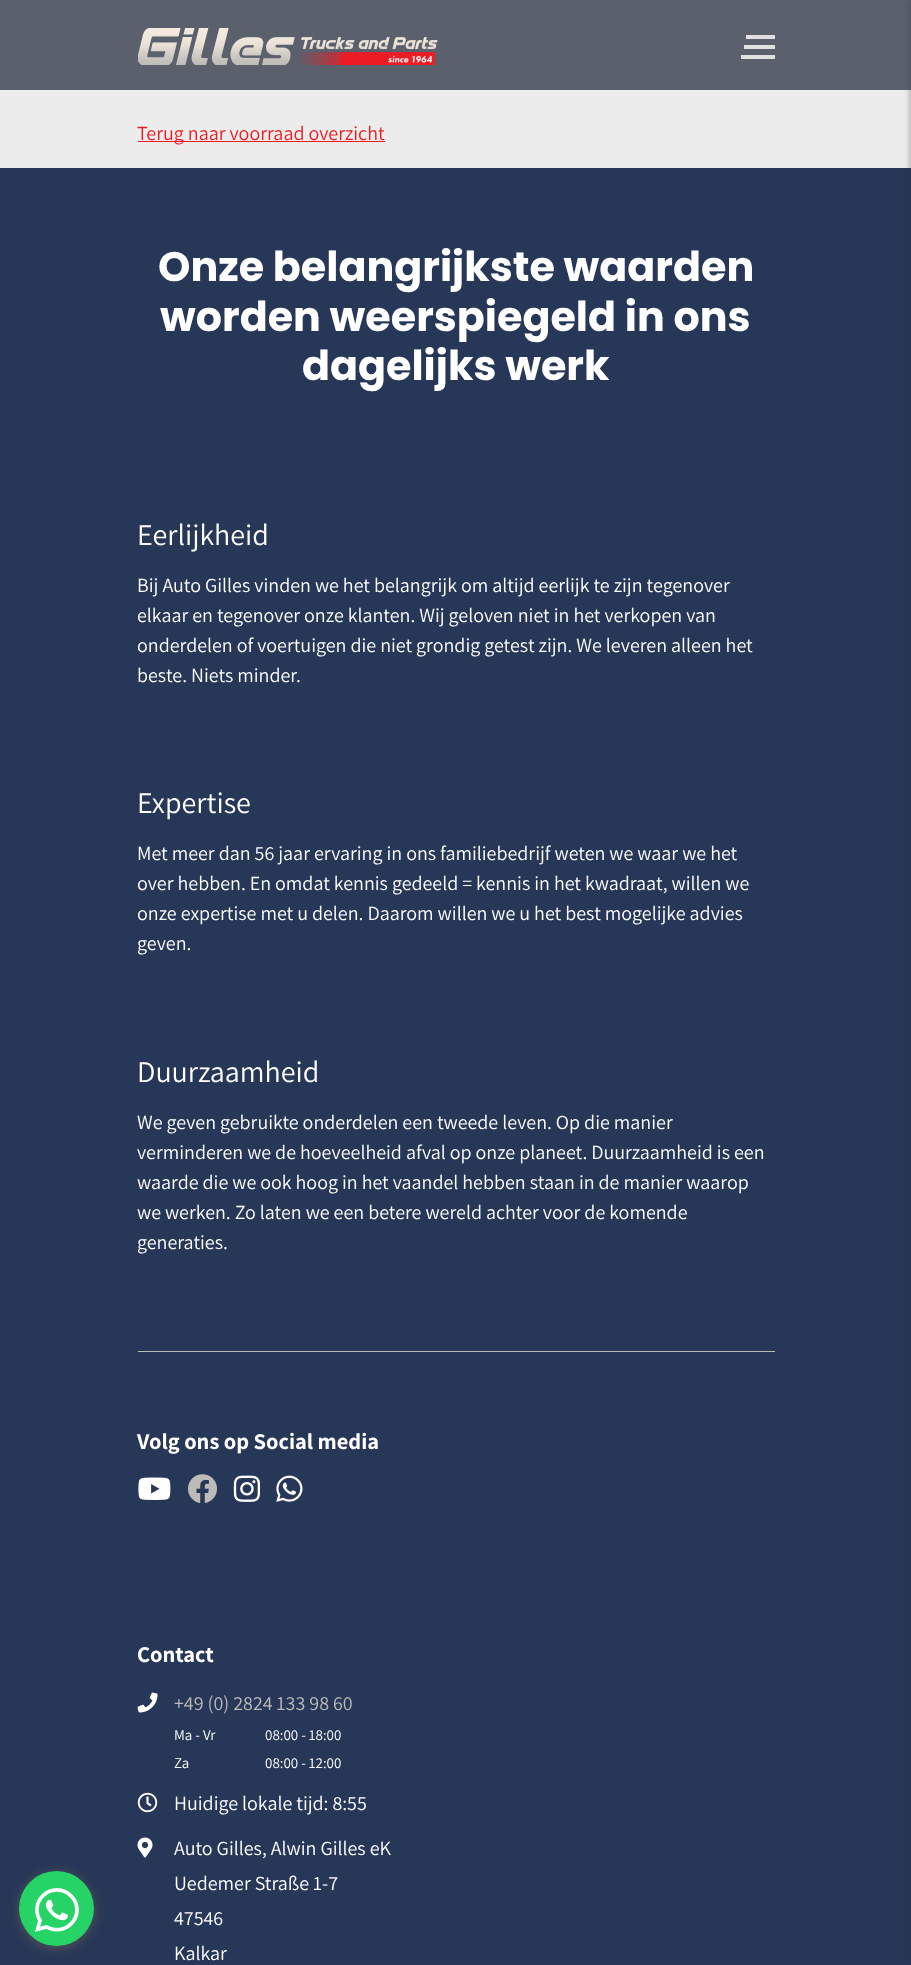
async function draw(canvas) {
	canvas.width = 911;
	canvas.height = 1965;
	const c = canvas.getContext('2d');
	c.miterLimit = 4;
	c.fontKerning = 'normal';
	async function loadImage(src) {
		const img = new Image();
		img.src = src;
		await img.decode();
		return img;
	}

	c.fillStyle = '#ececec';
	c.fillRect(0, 0, 911, 1965);
	c.fillStyle = '#2a3141bf';
	c.fillRect(0, 0, 911, 90);
	c.drawImage(await loadImage('img1.png'), 138, 28, 300, 37);
	for (const [x, y, w, h, color] of [
		[744, 45, 31, 4, '#e0e0e0'],
		[746, 35, 29, 4, '#e0e0e0'],
		[741, 55, 34, 4, '#e0e0e0'],
		[138, 141, 247, 1, '#ed1c24'],
	]) {
		c.fillStyle = color;
		c.fillRect(x, y, w, h);
	}
	c.font = '20px Assistant';
	c.fillText('Terug naar voorraad overzicht', 137, 140);
	c.fillStyle = '#273758';
	c.fillRect(0, 168, 911, 1797);
	c.fillStyle = '#2a314180';
	c.filter = 'blur(3px)';
	c.beginPath();
	c.rect(911, 0, 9, 1965);
	c.fill();
	c.filter = 'none';
	c.fillStyle = '#555';
	c.filter = 'blur(6px)';
	c.beginPath();
	c.roundRect(19, 1873, 75, 75, 37.5);
	c.fill();
	c.filter = 'none';
	c.fillStyle = '#25d366';
	c.beginPath();
	c.arc(56.5, 1908.5, 37.5, 0, 2 * Math.PI);
	c.fill();
	c.drawImage(await loadImage('img2.png'), 35, 1888, 44, 44);
	c.font = 'bold 41.25px Poppins';
	c.fillStyle = '#fff';
	for (const [text, x, y] of [
		['Onze belangrijkste waarden', 158, 281],
		['worden weerspiegeld in ons', 160, 331],
		['dagelijks werk', 302, 380],
	]) {
		c.fillText(text, x, y);
	}
	c.font = '30px Assistant';
	c.fillText('Eerlijkheid', 137, 545);
	c.font = '20px Assistant';
	for (const [text, x, y] of [
		['Bij Auto Gilles vinden we het belangrijk om altijd eerlijk te zijn tegenover', 137, 592],
		['elkaar en tegenover onze klanten. Wij geloven niet in het verkopen van', 137, 622],
		['onderdelen of voertuigen die niet grondig getest zijn. We leveren alleen het', 137, 652],
		['beste. Niets minder.', 137, 682],
	]) {
		c.fillText(text, x, y);
	}
	c.font = '30px Assistant';
	c.fillText('Expertise', 137, 813);
	c.font = '20px Assistant';
	for (const [text, x, y] of [
		['Met meer dan 56 jaar ervaring in ons familiebedrijf weten we waar we het', 137, 860],
		['over hebben. En omdat kennis gedeeld = kennis in het kwadraat, willen we', 137, 890],
		['onze expertise met u delen. Daarom willen we u het best mogelijke advies', 137, 920],
		['geven.', 137, 950],
	]) {
		c.fillText(text, x, y);
	}
	c.font = '30px Assistant';
	c.fillText('Duurzaamheid', 137, 1082);
	c.font = '20px Assistant';
	for (const [text, x, y] of [
		['We geven gebruikte onderdelen een tweede leven. Op die manier', 137, 1129],
		['verminderen we de hoeveelheid afval op onze planeet. Duurzaamheid is een', 137, 1159],
		['waarde die we ook hoog in het vaandel hebben staan in de manier waarop', 137, 1189],
		['we werken. Zo laten we een betere wereld achter voor de komende', 137, 1219],
		['generaties.', 137, 1249],
	]) {
		c.fillText(text, x, y);
	}
	c.fillStyle = '#bdbbb7';
	c.fillRect(138, 1351, 637, 1);
	c.font = 'bold 22.5px Assistant';
	c.fillStyle = '#fff';
	c.fillText('Volg ons op Social media', 137, 1449);
	c.drawImage(await loadImage('img3.png'), 138, 1477, 33, 23);
	c.drawImage(await loadImage('img4.png'), 188, 1474, 29, 29);
	c.drawImage(await loadImage('img5.png'), 233, 1475, 28, 27);
	c.drawImage(await loadImage('img6.png'), 276, 1475, 27, 27);
	c.fillText('Contact', 137, 1662);
	c.drawImage(await loadImage('img7.png'), 137, 1692, 21, 21);
	c.font = '20px Assistant';
	c.fillStyle = '#bdbbb7';
	c.fillText('+49 (0) 2824 133 98 60', 174, 1710);
	c.font = '15px Assistant';
	c.fillStyle = '#fff';
	for (const [text, x, y] of [
		['Ma - Vr', 174, 1740],
		['08:00 - 18:00', 265, 1740],
		['Za', 174, 1768],
		['08:00 - 12:00', 265, 1768],
	]) {
		c.fillText(text, x, y);
	}
	c.drawImage(await loadImage('img8.png'), 137, 1792, 21, 21);
	c.font = '20px Assistant';
	c.fillText('Huidige lokale tijd: 8:55', 174, 1810);
	c.drawImage(await loadImage('img9.png'), 137, 1837, 16, 21);
	for (const [text, x, y] of [
		['Auto Gilles, Alwin Gilles eK', 174, 1855],
		['Uedemer Straße 1-7', 174, 1890],
		['47546', 174, 1925],
		['Kalkar', 174, 1960],
	]) {
		c.fillText(text, x, y);
	}
}

draw(document.querySelector('canvas'));
